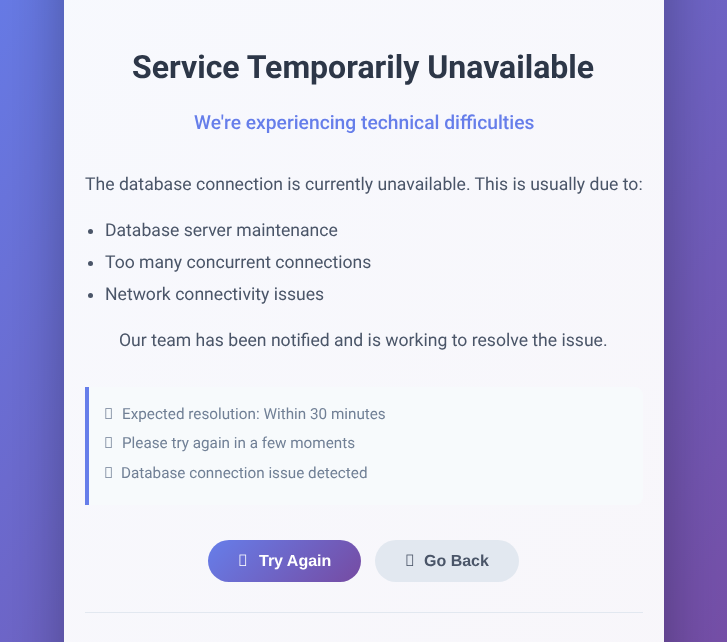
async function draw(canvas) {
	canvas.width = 727;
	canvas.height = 642;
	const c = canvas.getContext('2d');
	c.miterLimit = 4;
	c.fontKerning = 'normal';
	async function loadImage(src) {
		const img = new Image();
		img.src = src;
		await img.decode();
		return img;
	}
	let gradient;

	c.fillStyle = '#fff';
	c.fillRect(0, 0, 727, 642);
	gradient = c.createLinearGradient(-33, -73, 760, 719);
	gradient.addColorStop(0, '#667eea');
	gradient.addColorStop(1, '#764ba2');
	c.fillStyle = gradient;
	c.fillRect(0, 0, 727, 642);
	gradient = c.createLinearGradient(-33, -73, 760, 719);
	gradient.addColorStop(0, '#f7f9fe');
	gradient.addColorStop(1, '#f8f6fa');
	c.fillStyle = gradient;
	c.fillRect(64, 0, 600, 642);
	c.save();
	c.beginPath();
	c.moveTo(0, 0);
	c.lineTo(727, 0);
	c.lineTo(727, 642);
	c.lineTo(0, 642);
	c.closePath();
	c.moveTo(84, -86);
	c.lineTo(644, -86);
	c.bezierCurveTo(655, -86, 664, -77, 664, -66);
	c.lineTo(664, 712);
	c.bezierCurveTo(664, 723, 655, 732, 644, 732);
	c.lineTo(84, 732);
	c.bezierCurveTo(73, 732, 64, 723, 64, 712);
	c.lineTo(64, -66);
	c.bezierCurveTo(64, -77, 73, -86, 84, -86);
	c.closePath();
	c.clip('evenodd');
	c.fillStyle = '#0000004d';
	c.filter = 'blur(30px)';
	c.beginPath();
	c.roundRect(64, -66, 600, 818, 20);
	c.fill();
	c.filter = 'none';
	c.restore();
	c.font = 'bold 32px Roboto';
	c.fillStyle = '#2d3748';
	c.fillText('Service Temporarily Unavailable', 132, 78);
	c.font = '500 19.25px Roboto';
	c.fillStyle = '#667eea';
	c.fillText('We\'re experiencing technical difficulties', 194, 129);
	c.font = '17.6px Roboto';
	c.fillStyle = '#4a5568';
	c.fillText('The database connection is currently unavailable. This is usually due to:', 85, 190);
	c.beginPath();
	c.arc(90.5, 231.5, 2.5, 0, 2 * Math.PI);
	c.fill();
	c.fillText('Database server maintenance', 105, 236);
	c.beginPath();
	c.arc(90.5, 263.5, 2.5, 0, 2 * Math.PI);
	c.fill();
	c.fillText('Too many concurrent connections', 105, 268);
	c.beginPath();
	c.arc(90.5, 295.5, 2.5, 0, 2 * Math.PI);
	c.fill();
	c.fillText('Network connectivity issues', 105, 300);
	c.fillText('Our team has been notified and is working to resolve the issue.', 119, 346);
	c.fillStyle = '#f7fafc';
	c.beginPath();
	c.roundRect(85, 387, 558, 118, [0, 8, 8, 0]);
	c.fill();
	c.fillStyle = '#667eea';
	c.fillRect(85, 387, 4, 118);
	c.drawImage(await loadImage('img1.png'), 105, 408, 7, 11);
	c.font = '15.25px Roboto';
	c.fillStyle = '#718096';
	c.fillText('Expected resolution: Within 30 minutes', 122, 419);
	c.drawImage(await loadImage('img1.png'), 105, 437, 7, 11);
	c.fillText('Please try again in a few moments', 122, 448);
	c.drawImage(await loadImage('img1.png'), 105, 467, 7, 11);
	c.fillText('Database connection issue detected', 121, 478);
	gradient = c.createLinearGradient(236, 512, 333, 610);
	gradient.addColorStop(0, '#667eea');
	gradient.addColorStop(1, '#764ba2');
	c.fillStyle = gradient;
	c.beginPath();
	c.roundRect(208, 540, 153, 42, 21);
	c.fill();
	c.drawImage(await loadImage('img2.png'), 239, 554, 8, 12);
	c.font = 'bold 16px Liberation Sans';
	c.fillStyle = '#fff';
	c.fillText('Try Again', 259, 566);
	c.fillStyle = '#e2e8f0';
	c.beginPath();
	c.roundRect(375, 540, 144, 42, 21);
	c.fill();
	c.drawImage(await loadImage('img3.png'), 406, 554, 8, 12);
	c.fillStyle = '#4a5568';
	c.fillText('Go Back', 424, 566);
	c.fillStyle = '#e2e8f0';
	c.fillRect(85, 612, 558, 1);
}

draw(document.querySelector('canvas'));
